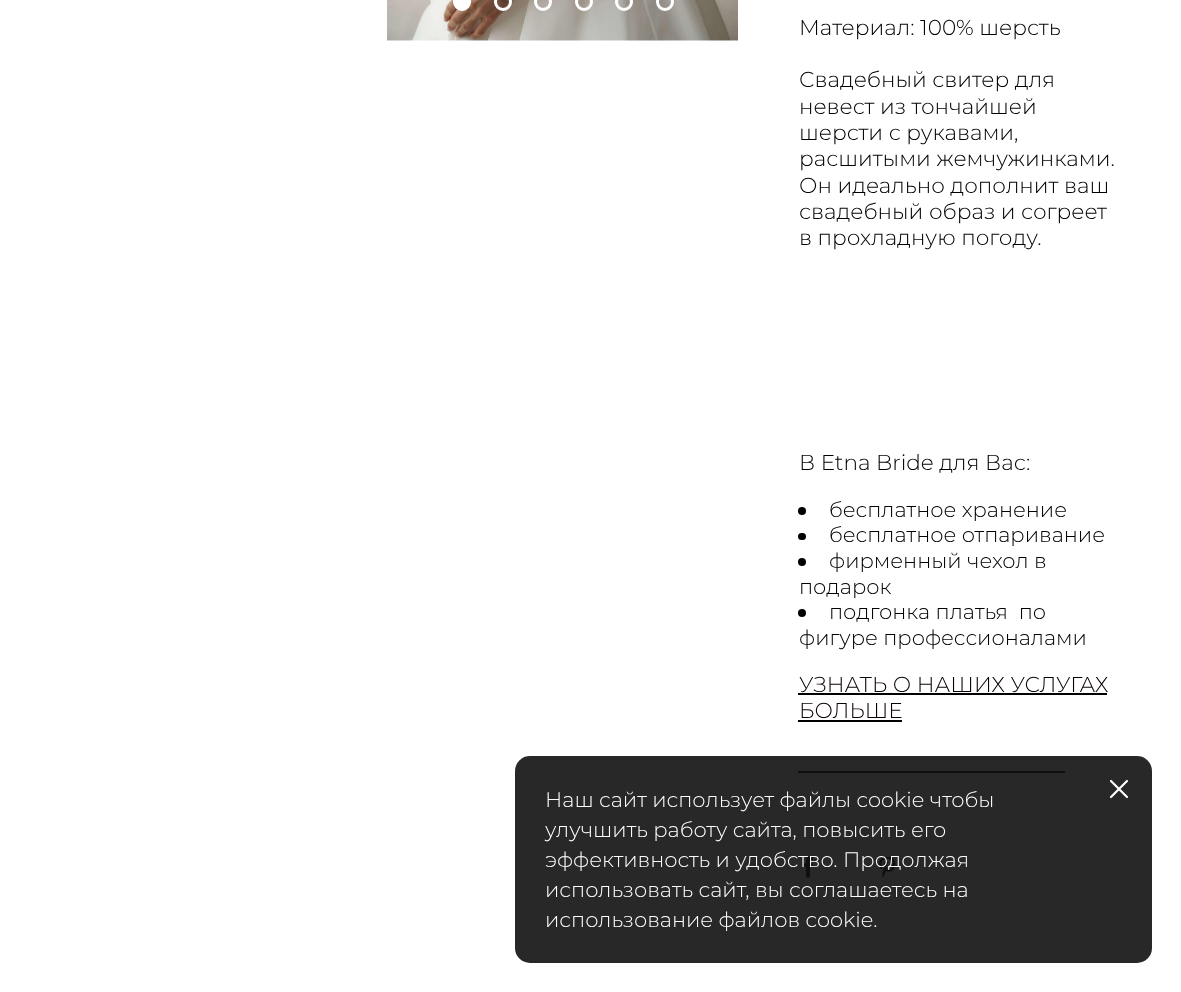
async function draw(canvas) {
	canvas.width = 1181;
	canvas.height = 992;
	const c = canvas.getContext('2d');
	c.miterLimit = 4;
	c.fontKerning = 'normal';
	async function loadImage(src) {
		const img = new Image();
		img.src = src;
		await img.decode();
		return img;
	}

	c.fillStyle = '#fff';
	c.fillRect(0, 0, 1181, 992);
	c.drawImage(await loadImage('img1.png'), 387, 0, 351, 41);
	c.beginPath();
	c.arc(462, 2, 7.5, 0, 2 * Math.PI);
	c.fill();
	c.strokeStyle = '#fff';
	c.lineWidth = 3;
	c.stroke();
	c.beginPath();
	c.arc(503, 2, 7.5, 0, 2 * Math.PI);
	c.stroke();
	c.beginPath();
	c.arc(543, 2, 7.5, 0, 2 * Math.PI);
	c.stroke();
	c.beginPath();
	c.arc(584, 2, 7.5, 0, 2 * Math.PI);
	c.stroke();
	c.beginPath();
	c.arc(624, 2, 7.5, 0, 2 * Math.PI);
	c.stroke();
	c.beginPath();
	c.arc(665, 2, 7.5, 0, 2 * Math.PI);
	c.stroke();
	c.font = '300 21.6px Montserrat';
	c.fillStyle = '#000';
	for (const [text, x, y] of [
		['Материал: 100% шерсть', 799, 35],
		['Свадебный свитер для', 799, 87],
		['невест из тончайшей', 799, 114],
		['шерсти с рукавами,', 799, 140],
		['расшитыми жемчужинками.', 799, 166],
		['Он идеально дополнит ваш', 799, 193],
		['свадебный образ и согреет', 799, 219],
		['в прохладную погоду.', 799, 245],
		['В Etna Bride для Вас:', 799, 470],
	]) {
		c.fillText(text, x, y);
	}
	c.beginPath();
	c.arc(802, 511, 4, 0, 2 * Math.PI);
	c.fill();
	c.font = '300 21px Montserrat';
	c.fillText('бесплатное хранение', 829, 517);
	c.beginPath();
	c.roundRect(798, 533, 8, 7, 3.5);
	c.fill();
	c.fillText('бесплатное отпаривание', 829, 542);
	c.beginPath();
	c.arc(802, 562, 4, 0, 2 * Math.PI);
	c.fill();
	c.fillText('фирменный чехол в', 829, 568);
	c.fillText('подарок', 799, 594);
	c.beginPath();
	c.arc(802, 613, 4, 0, 2 * Math.PI);
	c.fill();
	c.fillText('подгонка платья  по', 829, 619);
	c.fillText('фигуре профессионалами', 799, 645);
	c.font = '300 21.6px Montserrat';
	c.fillStyle = '#0a0000';
	c.fillText('УЗНАТЬ О НАШИХ УСЛУГАХ', 799, 692);
	c.fillStyle = '#000';
	c.fillRect(798, 693, 309, 2);
	c.fillStyle = '#0a0000';
	c.fillText('БОЛЬШЕ', 799, 718);
	c.fillStyle = '#000';
	c.fillRect(798, 720, 104, 2);
	c.fillRect(798, 771, 267, 2);
	c.drawImage(await loadImage('img2.png'), 804, 857, 9, 21);
	c.drawImage(await loadImage('img3.png'), 879, 857, 17, 21);
	c.fillStyle = '#111111e6';
	c.beginPath();
	c.roundRect(515, 756, 637, 207, 15);
	c.fill();
	c.beginPath();
	c.moveTo(1127, 781);
	c.lineTo(1111, 797);
	c.moveTo(1111, 781);
	c.lineTo(1127, 797);
	c.lineWidth = 2.2;
	c.lineCap = 'round';
	c.lineJoin = 'round';
	c.stroke();
	c.font = '300 21px Montserrat';
	c.fillStyle = '#fff';
	for (const [text, x, y] of [
		['Наш сайт использует файлы cookie чтобы', 545, 807],
		['улучшить работу сайта, повысить его', 545, 837],
		['эффективность и удобство. Продолжая', 545, 867],
		['использовать сайт, вы соглашаетесь на', 545, 897],
		['использование файлов cookie.', 545, 927],
	]) {
		c.fillText(text, x, y);
	}
}

draw(document.querySelector('canvas'));
